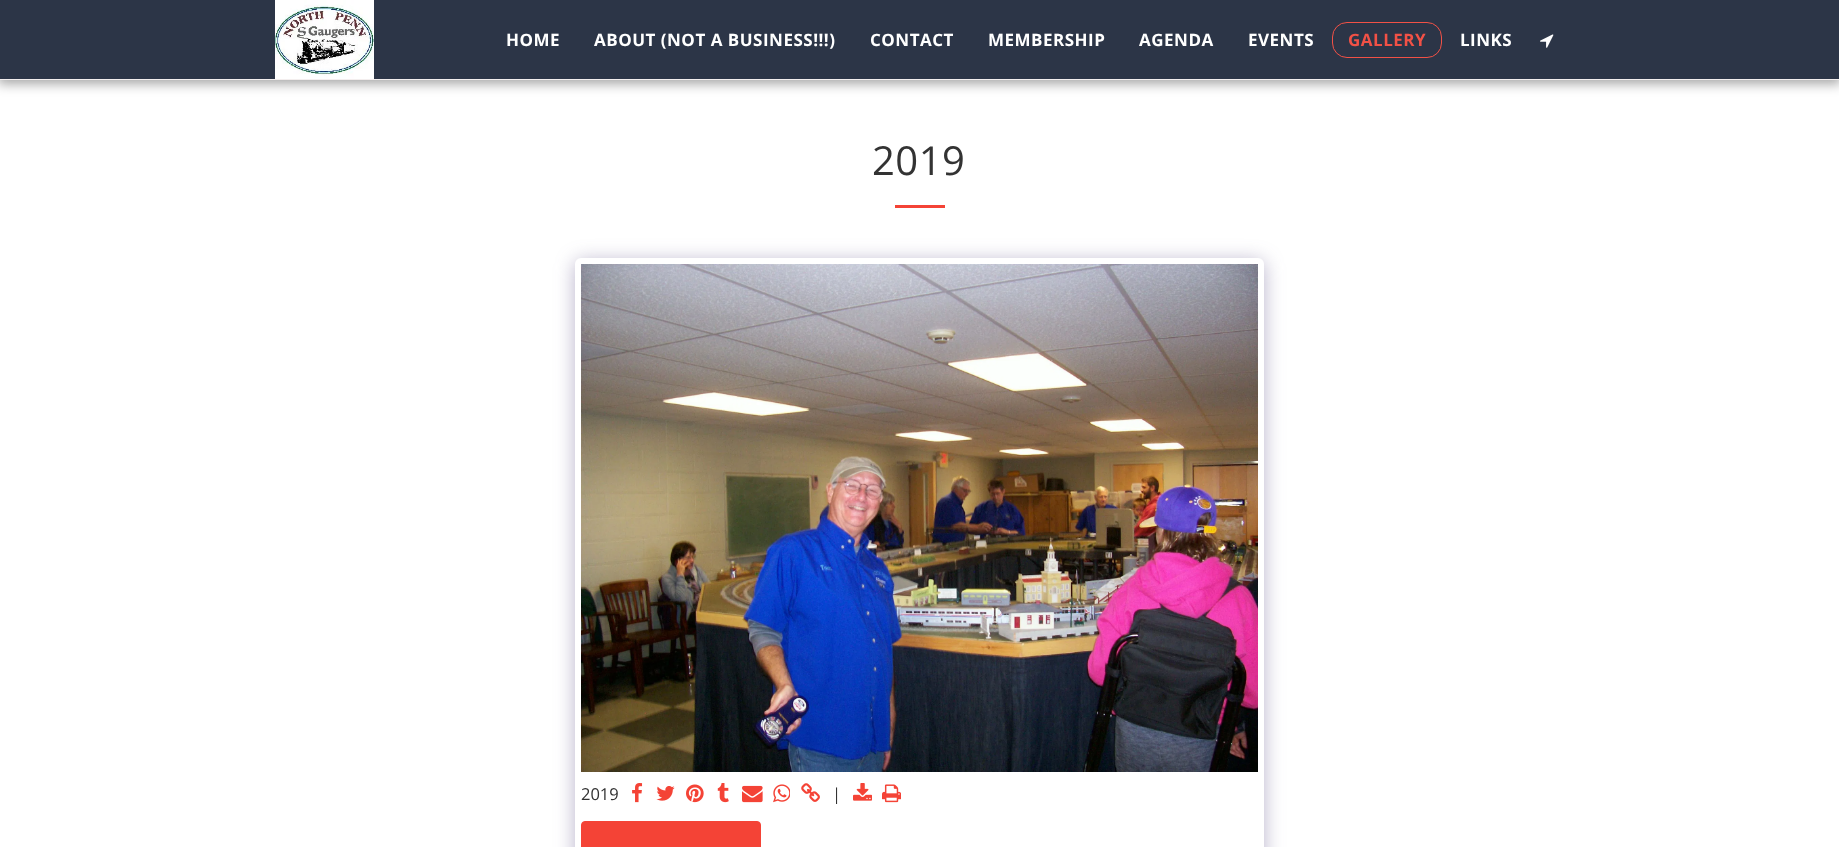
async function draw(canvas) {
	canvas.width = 1839;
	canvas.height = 847;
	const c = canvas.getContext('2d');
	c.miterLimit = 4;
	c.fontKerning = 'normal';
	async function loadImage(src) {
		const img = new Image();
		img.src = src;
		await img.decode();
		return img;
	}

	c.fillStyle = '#fff';
	c.fillRect(0, 0, 1839, 847);
	c.fillStyle = '#00000059';
	c.filter = 'blur(6px)';
	c.beginPath();
	c.rect(-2, 0, 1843, 84);
	c.fill();
	c.filter = 'none';
	c.fillStyle = '#2c3547';
	c.fillRect(0, 0, 1839, 79);
	c.fillStyle = '#f3eeee';
	c.fillRect(0, 79, 1839, 1);
	c.drawImage(await loadImage('img1.png'), 275, 0, 99, 79);
	c.letterSpacing = '0.5px';
	c.font = 'bold 17px Open Sans';
	c.fillStyle = '#fff';
	for (const [text, x, y] of [
		['HOME', 506, 46],
		['ABOUT (NOT A BUSINESS!!!)', 594, 46],
		['CONTACT', 870, 46],
		['MEMBERSHIP', 988, 46],
		['AGENDA', 1139, 46],
		['EVENTS', 1248, 46],
	]) {
		c.fillText(text, x, y);
	}
	c.beginPath();
	c.roundRect(1332.5, 22.5, 109, 35, 14.5);
	c.strokeStyle = '#f25146';
	c.stroke();
	c.fillStyle = '#f25146';
	c.fillText('GALLERY', 1348, 46);
	c.fillStyle = '#fff';
	c.fillText('LINKS', 1460, 46);
	c.drawImage(await loadImage('img2.png'), 1540, 34, 14, 14);
	c.font = '40px Open Sans';
	c.fillStyle = '#333';
	c.fillText('2019', 872, 175);
	c.fillStyle = '#f44336';
	c.fillRect(895, 205, 50, 3);
	c.fillStyle = '#4d3f7a66';
	c.filter = 'blur(10px)';
	c.beginPath();
	c.roundRect(575, 261, 689, 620, 6);
	c.fill();
	c.filter = 'none';
	c.fillStyle = '#fff';
	c.beginPath();
	c.roundRect(575, 258, 689, 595, 6);
	c.fill();
	c.drawImage(await loadImage('img3.png'), 581, 264, 677, 508);
	c.letterSpacing = '0px';
	c.font = '16.5px Open Sans';
	c.fillStyle = '#333';
	c.fillText('2019', 581, 800);
	c.drawImage(await loadImage('img4.png'), 632, 783, 11, 20);
	c.drawImage(await loadImage('img5.png'), 656, 786, 19, 15);
	c.drawImage(await loadImage('img6.png'), 686, 784, 18, 19);
	c.drawImage(await loadImage('img7.png'), 717, 783, 12, 20);
	c.drawImage(await loadImage('img8.png'), 742, 785, 21, 18);
	c.drawImage(await loadImage('img9.png'), 773, 784, 17, 19);
	c.drawImage(await loadImage('img10.png'), 801, 783, 19, 19);
	c.fillText('|', 832, 800);
	c.drawImage(await loadImage('img11.png'), 853, 783, 19, 18);
	c.drawImage(await loadImage('img12.png'), 882, 784, 19, 19);
	c.fillStyle = '#f44336';
	c.beginPath();
	c.roundRect(581.5, 821.5, 179, 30, 3.5);
	c.fill();
	c.strokeStyle = '#f44336';
	c.stroke();
}

draw(document.querySelector('canvas'));
